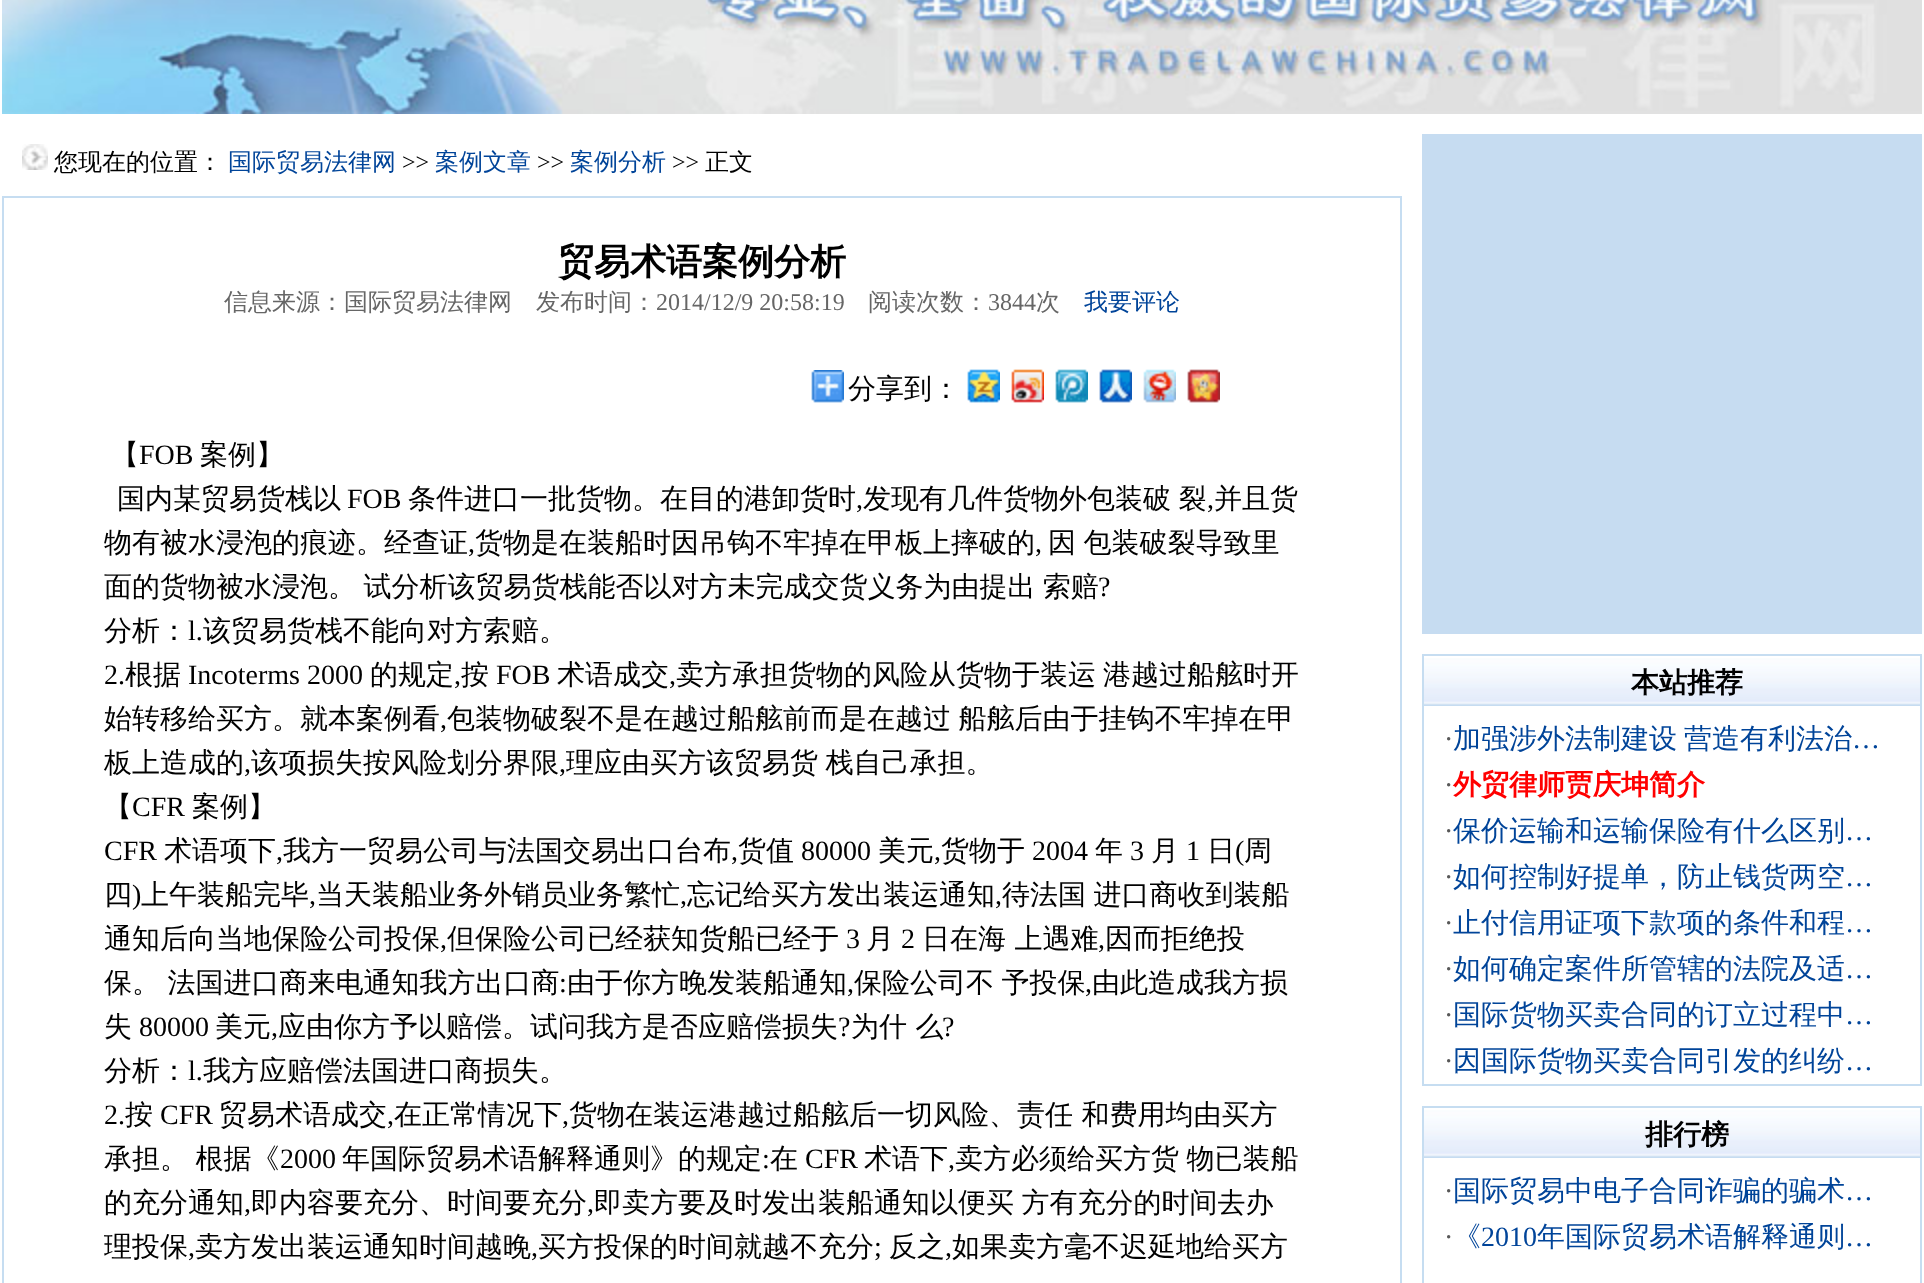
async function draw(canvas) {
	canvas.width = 1924;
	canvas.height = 1283;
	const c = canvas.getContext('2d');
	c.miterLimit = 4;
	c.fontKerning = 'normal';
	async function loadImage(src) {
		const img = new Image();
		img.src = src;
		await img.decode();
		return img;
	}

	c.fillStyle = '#fff';
	c.fillRect(0, 0, 1924, 1283);
	c.drawImage(await loadImage('img1.png'), 2, 0, 1920, 114);
	c.drawImage(await loadImage('img2.png'), 22, 144, 26, 26);
	c.font = '500 24px WenQuanYi Zen Hei';
	c.fillStyle = '#000';
	c.fillText('您现在的位置：', 54, 170);
	c.fillStyle = '#049';
	c.fillText('国际贸易法律网', 228, 170);
	c.font = '24px Liberation Serif';
	c.fillStyle = '#000';
	c.fillText('>>', 402, 170);
	c.font = '500 24px WenQuanYi Zen Hei';
	c.fillStyle = '#049';
	c.fillText('案例文章', 435, 170);
	c.font = '24px Liberation Serif';
	c.fillStyle = '#000';
	c.fillText('>>', 537, 170);
	c.font = '500 24px WenQuanYi Zen Hei';
	c.fillStyle = '#049';
	c.fillText('案例分析', 570, 170);
	c.font = '24px Liberation Serif';
	c.fillStyle = '#000';
	c.fillText('>>', 672, 170);
	c.font = '500 24px WenQuanYi Zen Hei';
	c.fillText('正文', 705, 170);
	c.strokeStyle = '#c6ddf1';
	c.lineWidth = 2;
	c.strokeRect(3, 197, 1398, 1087);
	c.font = 'bold 36px WenQuanYi Zen Hei';
	c.fillText('贸易术语案例分析', 558, 274);
	c.font = '500 24px WenQuanYi Zen Hei';
	c.fillStyle = '#666';
	c.fillText('信息来源：国际贸易法律网　发布时间：', 224, 310);
	c.font = '24px Liberation Serif';
	c.fillText('2014/12/9 20:58:19', 656, 310);
	c.font = '500 24px WenQuanYi Zen Hei';
	c.fillText('阅读次数：', 868, 310);
	c.font = '24px Liberation Serif';
	c.fillText('3844', 988, 310);
	c.font = '500 24px WenQuanYi Zen Hei';
	c.fillText('次', 1036, 310);
	c.fillStyle = '#049';
	c.fillText('我要评论', 1084, 310);
	c.drawImage(await loadImage('img3.png'), 811, 370, 33, 33);
	c.font = '500 28px WenQuanYi Zen Hei';
	c.fillStyle = '#000';
	c.fillText('分享到：', 848, 398);
	c.drawImage(await loadImage('img4.png'), 967, 369, 33, 34);
	c.drawImage(await loadImage('img5.png'), 1011, 369, 33, 34);
	c.drawImage(await loadImage('img6.png'), 1055, 369, 33, 34);
	c.drawImage(await loadImage('img7.png'), 1099, 369, 33, 34);
	c.drawImage(await loadImage('img8.png'), 1143, 369, 33, 34);
	c.drawImage(await loadImage('img9.png'), 1187, 369, 33, 34);
	c.fillText('【', 111, 464);
	c.font = '28px Liberation Serif';
	c.fillText('FOB', 139, 464);
	c.font = '500 28px WenQuanYi Zen Hei';
	c.fillText('案例】', 200, 464);
	c.fillText('国内某贸易货栈以', 117, 508);
	c.font = '28px Liberation Serif';
	c.fillText('FOB', 347, 508);
	c.font = '500 28px WenQuanYi Zen Hei';
	c.fillText('条件进口一批货物。在目的港卸货时', 408, 508);
	c.font = '28px Liberation Serif';
	c.fillText(',', 856, 508);
	c.wordSpacing = '-1px';
	c.font = '500 28px WenQuanYi Zen Hei';
	c.fillText('发现有几件货物外包装破 裂', 863, 508);
	c.wordSpacing = '0px';
	c.font = '28px Liberation Serif';
	c.fillText(',', 1207, 508);
	c.font = '500 28px WenQuanYi Zen Hei';
	c.fillText('并且货', 1214, 508);
	c.fillText('物有被水浸泡的痕迹。经查证', 104, 552);
	c.font = '28px Liberation Serif';
	c.fillText(',', 468, 552);
	c.font = '500 28px WenQuanYi Zen Hei';
	c.fillText('货物是在装船时因吊钩不牢掉在甲板上摔破的', 475, 552);
	c.font = '28px Liberation Serif';
	c.fillText(',', 1035, 552);
	c.wordSpacing = '-1px';
	c.font = '500 28px WenQuanYi Zen Hei';
	c.fillText('因 包装破裂导致里', 1048, 552);
	c.fillText('面的货物被水浸泡。 试分析该贸易货栈能否以对方未完成交货义务为由提出 索赔', 104, 596);
	c.wordSpacing = '0px';
	c.font = '28px Liberation Serif';
	c.fillText('?', 1098, 596);
	c.font = '500 28px WenQuanYi Zen Hei';
	c.fillText('分析：', 104, 640);
	c.font = '28px Liberation Serif';
	c.fillText('l.', 188, 640);
	c.font = '500 28px WenQuanYi Zen Hei';
	c.fillText('该贸易货栈不能向对方索赔。', 203, 640);
	c.font = '28px Liberation Serif';
	c.fillText('2.', 104, 684);
	c.font = '500 28px WenQuanYi Zen Hei';
	c.fillText('根据', 125, 684);
	c.font = '28px Liberation Serif';
	c.fillText('Incoterms 2000', 188, 684);
	c.font = '500 28px WenQuanYi Zen Hei';
	c.fillText('的规定', 370, 684);
	c.font = '28px Liberation Serif';
	c.fillText(',', 454, 684);
	c.font = '500 28px WenQuanYi Zen Hei';
	c.fillText('按', 461, 684);
	c.font = '28px Liberation Serif';
	c.fillText('FOB', 496, 684);
	c.font = '500 28px WenQuanYi Zen Hei';
	c.fillText('术语成交', 557, 684);
	c.font = '28px Liberation Serif';
	c.fillText(',', 669, 684);
	c.font = '500 28px WenQuanYi Zen Hei';
	for (const [text, x, y] of [
		['卖方承担货物的风险从货物于装运', 676, 684],
		['港越过船舷时开', 1103, 684],
		['始转移给买方。就本案例看', 104, 728],
	]) {
		c.fillText(text, x, y);
	}
	c.font = '28px Liberation Serif';
	c.fillText(',', 440, 728);
	c.wordSpacing = '-1px';
	c.font = '500 28px WenQuanYi Zen Hei';
	c.fillText('包装物破裂不是在越过船舷前而是在越过 船舷后由于挂钩不牢掉在甲', 447, 728);
	c.wordSpacing = '0px';
	c.fillText('板上造成的', 104, 772);
	c.font = '28px Liberation Serif';
	c.fillText(',', 244, 772);
	c.font = '500 28px WenQuanYi Zen Hei';
	c.fillText('该项损失按风险划分界限', 251, 772);
	c.font = '28px Liberation Serif';
	c.fillText(',', 559, 772);
	c.wordSpacing = '-1px';
	c.font = '500 28px WenQuanYi Zen Hei';
	c.fillText('理应由买方该贸易货 栈自己承担。', 566, 772);
	c.wordSpacing = '0px';
	c.fillText('【', 104, 816);
	c.font = '28px Liberation Serif';
	c.fillText('CFR', 132, 816);
	c.font = '500 28px WenQuanYi Zen Hei';
	c.fillText('案例】', 192, 816);
	c.font = '28px Liberation Serif';
	c.fillText('CFR', 104, 860);
	c.font = '500 28px WenQuanYi Zen Hei';
	for (const [text, x, y] of [
		['术语项下', 164, 860],
		['我方一贸易公司与法国交易出口台布', 283, 860],
		['货值', 738, 860],
	]) {
		c.fillText(text, x, y);
	}
	c.font = '28px Liberation Serif';
	c.fillText('80000', 801, 860);
	c.font = '500 28px WenQuanYi Zen Hei';
	c.fillText('美元', 878, 860);
	c.fillText('货物于', 941, 860);
	c.font = '28px Liberation Serif';
	c.fillText('2004', 1032, 860);
	c.font = '500 28px WenQuanYi Zen Hei';
	c.fillText('年', 1095, 860);
	c.font = '28px Liberation Serif';
	c.fillText('3', 1130, 860);
	c.font = '500 28px WenQuanYi Zen Hei';
	c.fillText('月', 1151, 860);
	c.font = '28px Liberation Serif';
	c.fillText('1', 1186, 860);
	c.font = '500 28px WenQuanYi Zen Hei';
	c.fillText('日', 1207, 860);
	c.font = '28px Liberation Serif';
	c.fillText('(', 1235, 860);
	c.font = '500 28px WenQuanYi Zen Hei';
	c.fillText('周', 1244, 860);
	c.font = '28px Liberation Serif';
	for (const [text, x, y] of [
		[',', 276, 860],
		[',', 731, 860],
		[',', 934, 860],
	]) {
		c.fillText(text, x, y);
	}
	c.font = '500 28px WenQuanYi Zen Hei';
	c.fillText('四', 104, 904);
	c.font = '28px Liberation Serif';
	c.fillText(')', 132, 904);
	c.font = '500 28px WenQuanYi Zen Hei';
	c.fillText('上午装船完毕', 141, 904);
	c.font = '28px Liberation Serif';
	c.fillText(',', 309, 904);
	c.font = '500 28px WenQuanYi Zen Hei';
	c.fillText('当天装船业务外销员业务繁忙', 316, 904);
	c.font = '28px Liberation Serif';
	c.fillText(',', 680, 904);
	c.font = '500 28px WenQuanYi Zen Hei';
	c.fillText('忘记给买方发出装运通知', 687, 904);
	c.font = '28px Liberation Serif';
	c.fillText(',', 995, 904);
	c.wordSpacing = '-1px';
	c.font = '500 28px WenQuanYi Zen Hei';
	c.fillText('待法国 进口商收到装船', 1002, 904);
	c.wordSpacing = '0px';
	c.fillText('通知后向当地保险公司投保', 104, 948);
	c.fillText('但保险公司已经获知货船已经于', 447, 948);
	c.font = '28px Liberation Serif';
	c.fillText('3', 846, 948);
	c.font = '500 28px WenQuanYi Zen Hei';
	c.fillText('月', 866, 948);
	c.font = '28px Liberation Serif';
	c.fillText('2', 901, 948);
	c.font = '500 28px WenQuanYi Zen Hei';
	c.fillText('日在海 上遇难', 922, 948);
	c.fillText('因而拒绝投', 1105, 948);
	c.font = '28px Liberation Serif';
	c.fillText(',', 440, 948);
	c.fillText(',', 1098, 948);
	c.wordSpacing = '-1px';
	c.font = '500 28px WenQuanYi Zen Hei';
	c.fillText('保。 法国进口商来电通知我方出口商', 104, 992);
	c.wordSpacing = '0px';
	c.font = '28px Liberation Serif';
	c.fillText(':', 559, 992);
	c.font = '500 28px WenQuanYi Zen Hei';
	c.fillText('由于你方晚发装船通知', 567, 992);
	c.font = '28px Liberation Serif';
	c.fillText(',', 847, 992);
	c.wordSpacing = '-1px';
	c.font = '500 28px WenQuanYi Zen Hei';
	c.fillText('保险公司不 予投保', 854, 992);
	c.wordSpacing = '0px';
	c.font = '28px Liberation Serif';
	c.fillText(',', 1085, 992);
	c.font = '500 28px WenQuanYi Zen Hei';
	c.fillText('由此造成我方损', 1092, 992);
	c.fillText('失', 104, 1036);
	c.font = '28px Liberation Serif';
	c.fillText('80000', 139, 1036);
	c.font = '500 28px WenQuanYi Zen Hei';
	c.fillText('美元', 215, 1036);
	c.font = '28px Liberation Serif';
	c.fillText(',', 271, 1036);
	c.font = '500 28px WenQuanYi Zen Hei';
	c.fillText('应由你方予以赔偿。试问我方是否应赔偿损失', 278, 1036);
	c.font = '28px Liberation Serif';
	c.fillText('?', 838, 1036);
	c.font = '500 28px WenQuanYi Zen Hei';
	c.fillText('为什 么', 851, 1036);
	c.font = '28px Liberation Serif';
	c.fillText('?', 942, 1036);
	c.font = '500 28px WenQuanYi Zen Hei';
	c.fillText('分析：', 104, 1080);
	c.font = '28px Liberation Serif';
	c.fillText('l.', 188, 1080);
	c.font = '500 28px WenQuanYi Zen Hei';
	c.fillText('我方应赔偿法国进口商损失。', 203, 1080);
	c.font = '28px Liberation Serif';
	c.fillText('2.', 104, 1124);
	c.font = '500 28px WenQuanYi Zen Hei';
	c.fillText('按', 125, 1124);
	c.font = '28px Liberation Serif';
	c.fillText('CFR', 160, 1124);
	c.font = '500 28px WenQuanYi Zen Hei';
	c.fillText('贸易术语成交', 219, 1124);
	c.font = '28px Liberation Serif';
	c.fillText(',', 387, 1124);
	c.font = '500 28px WenQuanYi Zen Hei';
	c.fillText('在正常情况下', 394, 1124);
	c.font = '28px Liberation Serif';
	c.fillText(',', 562, 1124);
	c.font = '500 28px WenQuanYi Zen Hei';
	c.fillText('货物在装运港越过船舷后一切风险、责任 和费用均由买方', 569, 1124);
	c.wordSpacing = '-1px';
	c.fillText('承担。 根据《', 104, 1168);
	c.wordSpacing = '0px';
	c.font = '28px Liberation Serif';
	c.fillText('2000', 280, 1168);
	c.font = '500 28px WenQuanYi Zen Hei';
	c.fillText('年国际贸易术语解释通则》的规定', 342, 1168);
	c.font = '28px Liberation Serif';
	c.fillText(':', 762, 1168);
	c.font = '500 28px WenQuanYi Zen Hei';
	c.fillText('在', 770, 1168);
	c.font = '28px Liberation Serif';
	c.fillText('CFR', 805, 1168);
	c.font = '500 28px WenQuanYi Zen Hei';
	c.fillText('术语下', 864, 1168);
	c.font = '28px Liberation Serif';
	c.fillText(',', 948, 1168);
	c.wordSpacing = '-1px';
	c.font = '500 28px WenQuanYi Zen Hei';
	c.fillText('卖方必须给买方货 物已装船', 955, 1168);
	c.wordSpacing = '0px';
	c.fillText('的充分通知', 104, 1212);
	c.font = '28px Liberation Serif';
	c.fillText(',', 244, 1212);
	c.font = '500 28px WenQuanYi Zen Hei';
	c.fillText('即内容要充分、时间要充分', 251, 1212);
	c.font = '28px Liberation Serif';
	c.fillText(',', 587, 1212);
	c.wordSpacing = '-1px';
	c.font = '500 28px WenQuanYi Zen Hei';
	c.fillText('即卖方要及时发出装船通知以便买 方有充分的时间去办', 594, 1212);
	c.wordSpacing = '0px';
	c.fillText('理投保', 104, 1256);
	c.font = '28px Liberation Serif';
	c.fillText(',', 188, 1256);
	c.font = '500 28px WenQuanYi Zen Hei';
	c.fillText('卖方发出装运通知时间越晚', 195, 1256);
	c.font = '28px Liberation Serif';
	c.fillText(',', 531, 1256);
	c.font = '500 28px WenQuanYi Zen Hei';
	c.fillText('买方投保的时间就越不充分', 538, 1256);
	c.font = '28px Liberation Serif';
	c.fillText(';', 874, 1256);
	c.font = '500 28px WenQuanYi Zen Hei';
	c.fillText('反之', 889, 1256);
	c.font = '28px Liberation Serif';
	c.fillText(',', 945, 1256);
	c.font = '500 28px WenQuanYi Zen Hei';
	c.fillText('如果卖方毫不迟延地给买方', 952, 1256);
	c.fillStyle = '#c6dcf1';
	c.fillRect(1422, 134, 500, 500);
	c.strokeRect(1423, 655, 498, 430);
	c.drawImage(await loadImage('img10.png'), 1424, 658, 496, 48);
	c.font = 'bold 28px WenQuanYi Zen Hei';
	c.fillStyle = '#000';
	c.fillText('本站推荐', 1631, 692);
	c.font = '28px Liberation Serif';
	c.fillStyle = '#585858';
	c.fillText('·', 1444, 748);
	c.font = '500 28px WenQuanYi Zen Hei';
	c.fillStyle = '#049';
	c.fillText('加强涉外法制建设', 1453, 748);
	c.fillText('营造有利法治', 1684, 748);
	c.font = '28px Liberation Serif';
	c.fillText('…', 1852, 748);
	c.fillStyle = '#585858';
	c.fillText('·', 1444, 794);
	c.font = 'bold 28px WenQuanYi Zen Hei';
	c.fillStyle = '#f00';
	c.fillText('外贸律师贾庆坤简介', 1453, 794);
	c.font = '28px Liberation Serif';
	c.fillStyle = '#585858';
	c.fillText('·', 1444, 840);
	c.font = '500 28px WenQuanYi Zen Hei';
	c.fillStyle = '#049';
	c.fillText('保价运输和运输保险有什么区别', 1453, 840);
	c.font = '28px Liberation Serif';
	c.fillText('…', 1845, 840);
	c.fillStyle = '#585858';
	c.fillText('·', 1444, 886);
	c.font = '500 28px WenQuanYi Zen Hei';
	c.fillStyle = '#049';
	c.fillText('如何控制好提单，防止钱货两空', 1453, 886);
	c.font = '28px Liberation Serif';
	c.fillText('…', 1845, 886);
	c.fillStyle = '#585858';
	c.fillText('·', 1444, 932);
	c.font = '500 28px WenQuanYi Zen Hei';
	c.fillStyle = '#049';
	c.fillText('止付信用证项下款项的条件和程', 1453, 932);
	c.font = '28px Liberation Serif';
	c.fillText('…', 1845, 932);
	c.fillStyle = '#585858';
	c.fillText('·', 1444, 978);
	c.font = '500 28px WenQuanYi Zen Hei';
	c.fillStyle = '#049';
	c.fillText('如何确定案件所管辖的法院及适', 1453, 978);
	c.font = '28px Liberation Serif';
	c.fillText('…', 1845, 978);
	c.fillStyle = '#585858';
	c.fillText('·', 1444, 1024);
	c.font = '500 28px WenQuanYi Zen Hei';
	c.fillStyle = '#049';
	c.fillText('国际货物买卖合同的订立过程中', 1453, 1024);
	c.font = '28px Liberation Serif';
	c.fillText('…', 1845, 1024);
	c.fillStyle = '#585858';
	c.fillText('·', 1444, 1070);
	c.font = '500 28px WenQuanYi Zen Hei';
	c.fillStyle = '#049';
	c.fillText('因国际货物买卖合同引发的纠纷', 1453, 1070);
	c.font = '28px Liberation Serif';
	c.fillText('…', 1845, 1070);
	c.strokeRect(1423, 1107, 498, 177);
	c.drawImage(await loadImage('img10.png'), 1424, 1110, 496, 48);
	c.font = 'bold 28px WenQuanYi Zen Hei';
	c.fillStyle = '#000';
	c.fillText('排行榜', 1645, 1144);
	c.font = '28px Liberation Serif';
	c.fillStyle = '#585858';
	c.fillText('·', 1444, 1200);
	c.font = '500 28px WenQuanYi Zen Hei';
	c.fillStyle = '#049';
	c.fillText('国际贸易中电子合同诈骗的骗术', 1453, 1200);
	c.font = '28px Liberation Serif';
	c.fillText('…', 1845, 1200);
	c.fillStyle = '#585858';
	c.fillText('·', 1444, 1246);
	c.font = '500 28px WenQuanYi Zen Hei';
	c.fillStyle = '#049';
	c.fillText('《', 1453, 1246);
	c.font = '28px Liberation Serif';
	c.fillText('2010', 1481, 1246);
	c.font = '500 28px WenQuanYi Zen Hei';
	c.fillText('年国际贸易术语解释通则', 1537, 1246);
	c.font = '28px Liberation Serif';
	c.fillText('…', 1845, 1246);
}

draw(document.querySelector('canvas'));
